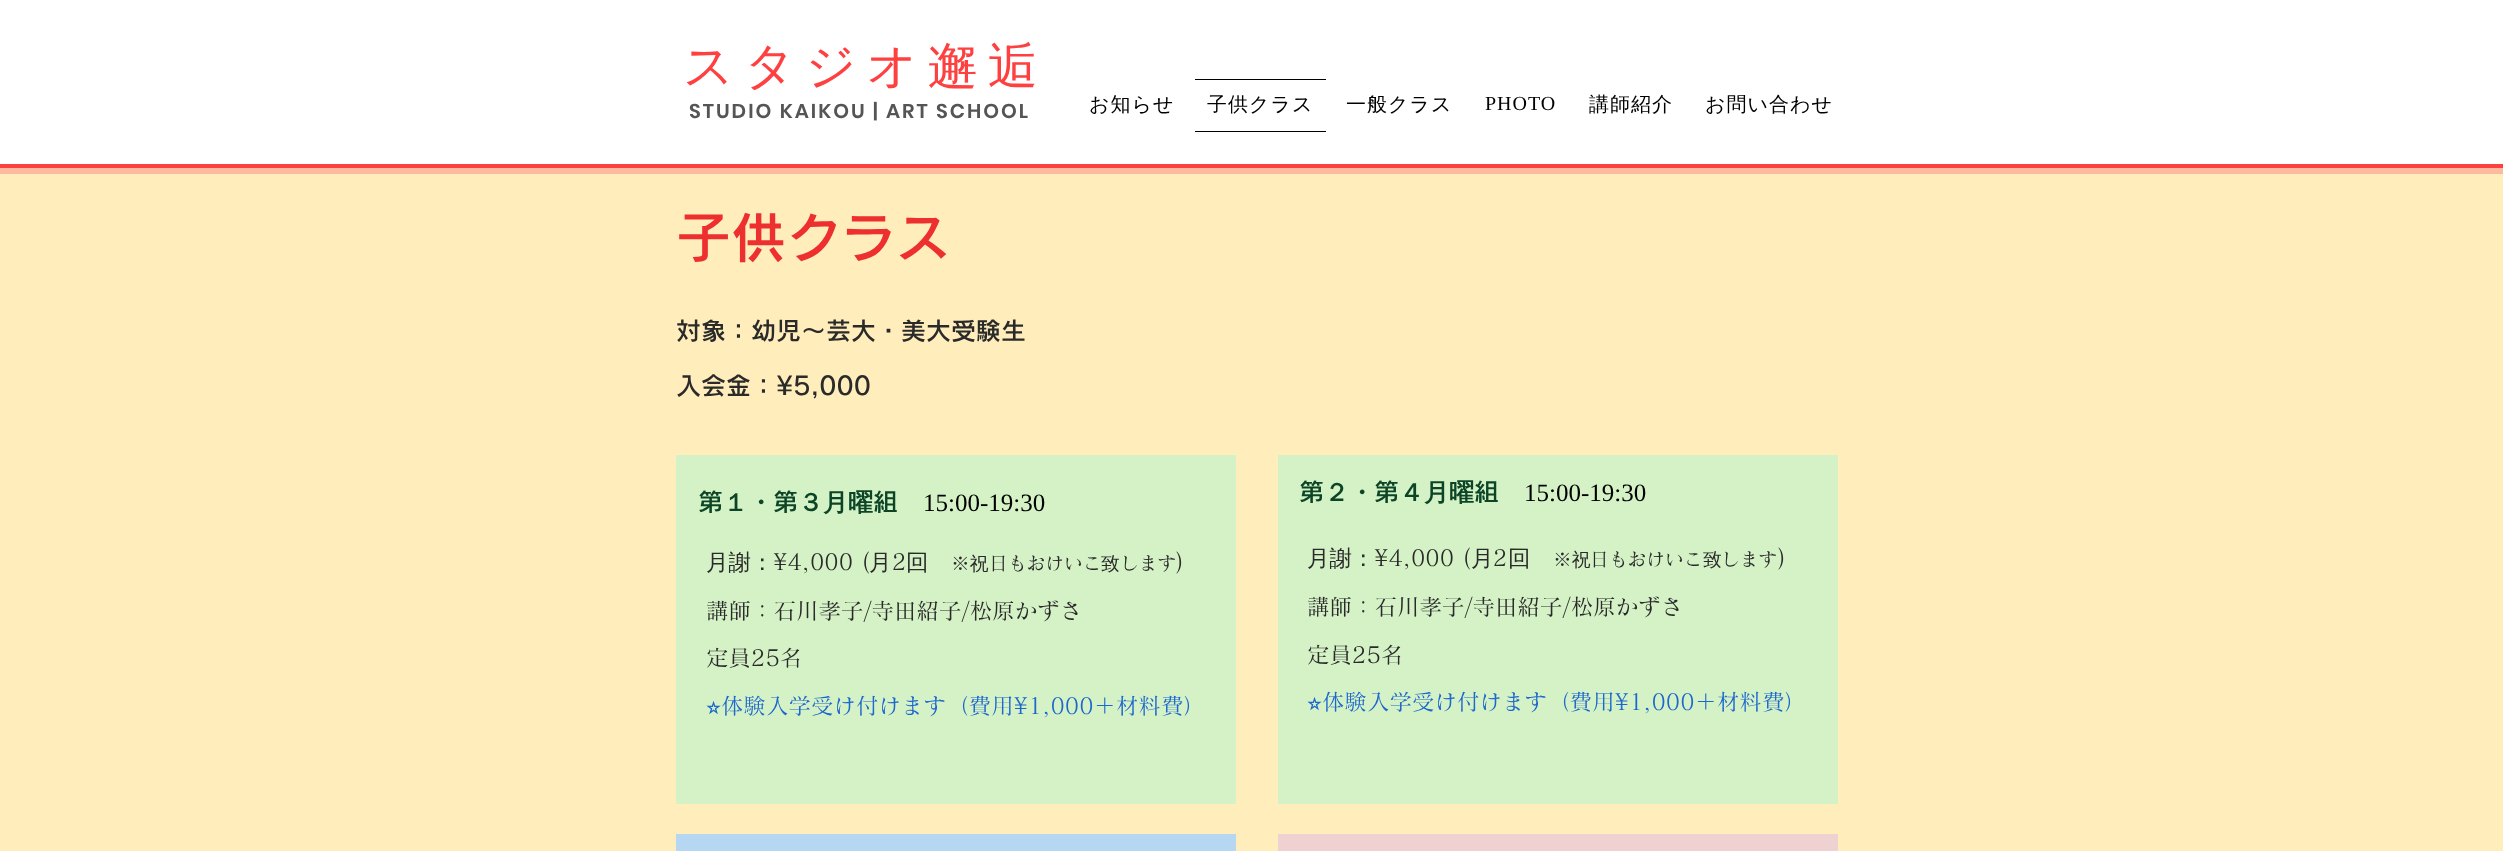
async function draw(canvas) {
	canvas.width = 2503;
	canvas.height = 851;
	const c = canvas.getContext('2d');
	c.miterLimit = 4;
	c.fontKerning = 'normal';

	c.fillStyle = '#ffeebc';
	c.fillRect(0, 0, 2503, 851);
	c.fillStyle = '#fff';
	c.fillRect(0, 0, 2503, 164);
	c.fillStyle = '#ff4040';
	c.fillRect(0, 164, 2503, 4);
	c.letterSpacing = '10px';
	c.font = '500 50px WenQuanYi Zen Hei';
	c.fillText('スタジオ邂逅', 683, 83);
	c.letterSpacing = '2px';
	c.font = '600 20px Poppins';
	c.fillStyle = '#555';
	c.fillText('STUDIO KAIKOU | ART SCHOOL', 689, 118);
	c.letterSpacing = '1px';
	c.font = '500 20px WenQuanYi Zen Hei';
	c.fillStyle = '#000';
	c.fillText('お知らせ', 1089, 111);
	c.fillRect(1195, 79, 131, 1);
	c.fillRect(1195, 131, 131, 1);
	c.fillText('子供クラス', 1207, 111);
	c.fillText('一般クラス', 1346, 111);
	c.font = '20px Liberation Serif';
	c.fillText('PHOTO', 1485, 110);
	c.font = '500 20px WenQuanYi Zen Hei';
	c.fillText('講師紹介', 1589, 111);
	c.fillText('お問い合わせ', 1705, 111);
	c.fillStyle = '#feba9e';
	c.fillRect(0, 168, 2503, 6);
	c.letterSpacing = '0px';
	c.font = '600 55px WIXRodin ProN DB';
	c.fillStyle = '#ed2f2f';
	c.fillText('子供クラス', 676, 258);
	c.font = '600 25px WIXRodin ProN DB';
	c.fillStyle = '#2a2a2a';
	c.fillText('対象：幼児〜芸大・美大受験生', 676, 340);
	c.fillText('入会金：¥5,000', 676, 395);
	c.fillStyle = '#d5f2c7';
	c.fillRect(676, 455, 560, 349);
	c.fillStyle = '#0c4426';
	c.fillText('第', 698, 511);
	c.font = 'bold 25px WenQuanYi Zen Hei';
	c.fillText('１・', 723, 511);
	c.font = '600 25px WIXRodin ProN DB';
	c.fillText('第', 773, 511);
	c.font = 'bold 25px WenQuanYi Zen Hei';
	c.fillText('３月曜', 798, 511);
	c.font = '600 25px WIXRodin ProN DB';
	c.fillText('組', 873, 511);
	c.font = '25px Liberation Serif';
	c.fillStyle = '#000';
	c.fillText('15:00-19:30', 923, 511);
	c.font = '500 22.5px WenQuanYi Zen Hei';
	c.fillStyle = '#2a2a2a';
	c.fillText('月謝：', 706, 570);
	c.font = '500 22.5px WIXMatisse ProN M';
	c.fillText('¥4,000 (', 773, 570);
	c.font = '500 22.5px WenQuanYi Zen Hei';
	c.fillText('月', 869, 570);
	c.font = '500 22.5px WIXMatisse ProN M';
	c.fillText('2', 892, 570);
	c.font = '500 22.5px WenQuanYi Zen Hei';
	c.fillText('回', 906, 570);
	c.font = '500 18.75px WenQuanYi Zen Hei';
	c.fillText('※祝', 951, 570);
	c.font = '500 18.75px WIXMatisse ProN M';
	c.fillText('日もおけいこ', 989, 570);
	c.font = '500 18.75px WenQuanYi Zen Hei';
	c.fillText('致', 1101, 570);
	c.font = '500 18.75px WIXMatisse ProN M';
	c.fillText('します', 1120, 570);
	c.font = '500 22.5px WIXMatisse ProN M';
	for (const [text, x, y] of [
		[')', 1176, 570],
		['講師：石川孝子/寺田紹子/松原かずさ', 706, 619],
		['定員25名', 706, 666],
	]) {
		c.fillText(text, x, y);
	}
	c.font = '22.5px FreeSans';
	c.fillStyle = '#1d67cd';
	c.fillText('⭐︎', 706, 714);
	c.font = '500 22.5px WIXMatisse ProN M';
	c.fillText('体験入学受け付けます（費用¥1,000＋材料費）', 721, 714);
	c.fillStyle = '#b6d7f2';
	c.fillRect(676, 834, 560, 17);
	c.fillStyle = '#d5f2c7';
	c.fillRect(1278, 455, 560, 349);
	c.font = '600 25px WIXRodin ProN DB';
	c.fillStyle = '#0c4426';
	c.fillText('第', 1299, 501);
	c.font = 'bold 25px WenQuanYi Zen Hei';
	c.fillText('２・', 1324, 501);
	c.font = '600 25px WIXRodin ProN DB';
	c.fillText('第', 1374, 501);
	c.font = 'bold 25px WenQuanYi Zen Hei';
	c.fillText('４月曜', 1399, 501);
	c.font = '600 25px WIXRodin ProN DB';
	c.fillText('組', 1474, 501);
	c.font = '25px Liberation Serif';
	c.fillStyle = '#000';
	c.fillText('15:00-19:30', 1524, 501);
	c.font = '500 22.5px WenQuanYi Zen Hei';
	c.fillStyle = '#2a2a2a';
	c.fillText('月謝：', 1307, 566);
	c.font = '500 22.5px WIXMatisse ProN M';
	c.fillText('¥4,000 (', 1374, 566);
	c.font = '500 22.5px WenQuanYi Zen Hei';
	c.fillText('月', 1471, 566);
	c.font = '500 22.5px WIXMatisse ProN M';
	c.fillText('2', 1493, 566);
	c.font = '500 22.5px WenQuanYi Zen Hei';
	c.fillText('回', 1508, 566);
	c.font = '500 18.75px WenQuanYi Zen Hei';
	c.fillText('※祝', 1553, 566);
	c.font = '500 18.75px WIXMatisse ProN M';
	c.fillText('日もおけいこ', 1590, 566);
	c.font = '500 18.75px WenQuanYi Zen Hei';
	c.fillText('致', 1703, 566);
	c.font = '500 18.75px WIXMatisse ProN M';
	c.fillText('します', 1721, 566);
	c.font = '500 22.5px WIXMatisse ProN M';
	for (const [text, x, y] of [
		[')', 1778, 566],
		['講師：石川孝子/寺田紹子/松原かずさ', 1307, 615],
		['定員25名', 1307, 663],
	]) {
		c.fillText(text, x, y);
	}
	c.font = '22.5px FreeSans';
	c.fillStyle = '#1d67cd';
	c.fillText('⭐︎', 1307, 710);
	c.font = '500 22.5px WIXMatisse ProN M';
	c.fillText('体験入学受け付けます（費用¥1,000＋材料費）', 1322, 710);
	c.fillStyle = '#f0d1d1';
	c.fillRect(1278, 834, 560, 17);
}

draw(document.querySelector('canvas'));
